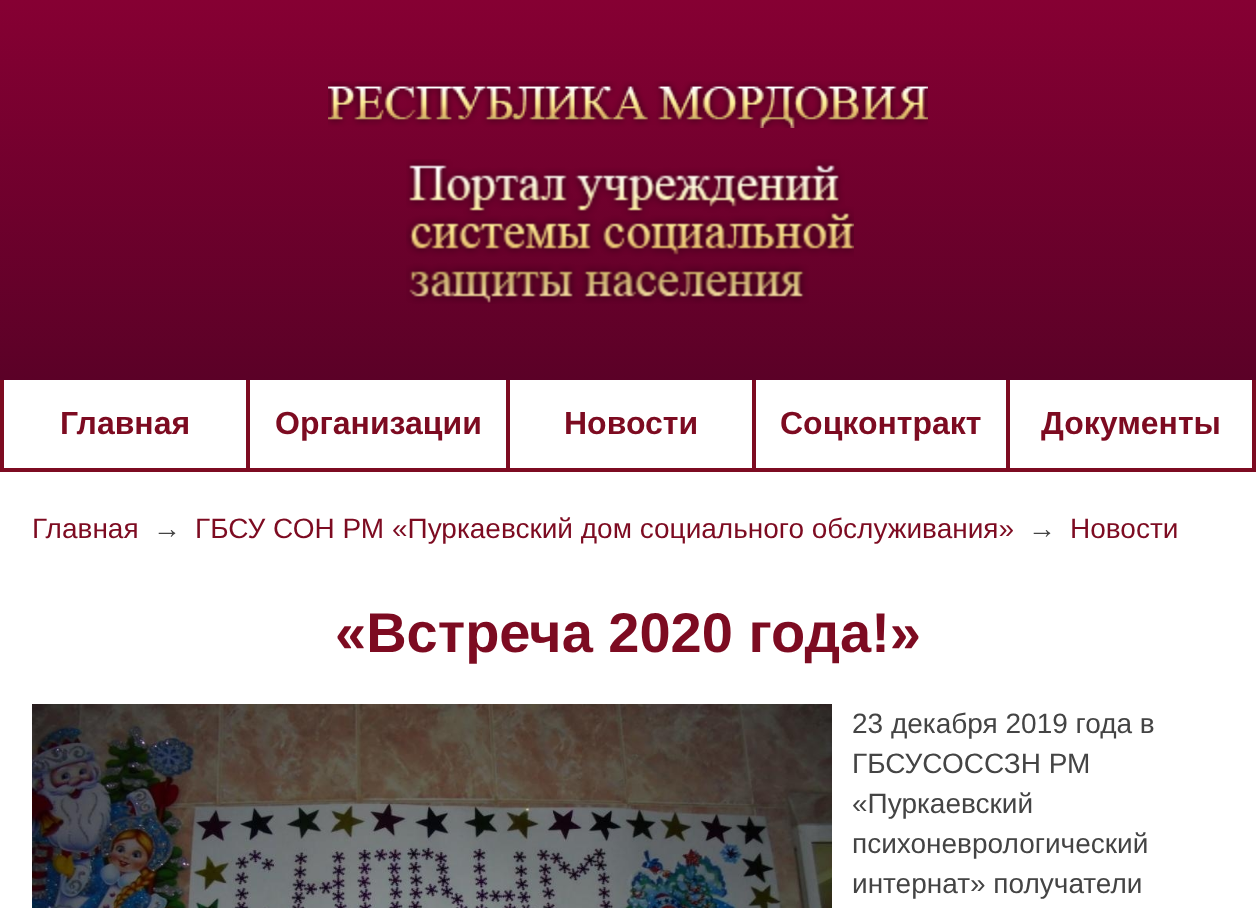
async function draw(canvas) {
	canvas.width = 1256;
	canvas.height = 908;
	const c = canvas.getContext('2d');
	c.miterLimit = 4;
	c.fontKerning = 'normal';
	async function loadImage(src) {
		const img = new Image();
		img.src = src;
		await img.decode();
		return img;
	}
	let gradient;

	c.fillStyle = '#fff';
	c.fillRect(0, 0, 1256, 908);
	gradient = c.createLinearGradient(628, 380, 628, 0);
	gradient.addColorStop(0, '#5b0127');
	gradient.addColorStop(1, '#860033');
	c.fillStyle = gradient;
	c.fillRect(0, 0, 1256, 380);
	c.drawImage(await loadImage('img1.png'), 328, 81, 600, 47);
	c.drawImage(await loadImage('img2.png'), 406, 159, 448, 145);
	for (const [x, y, w, h, color] of [
		[246, 380, 4, 92, '#7d0b21'],
		[0, 468, 250, 4, '#7d0b21'],
		[0, 380, 4, 92, '#7d0b21'],
	]) {
		c.fillStyle = color;
		c.fillRect(x, y, w, h);
	}
	c.font = 'bold 32px Liberation Sans';
	c.fillText('Главная', 60, 434);
	c.fillRect(506, 380, 4, 92);
	c.fillRect(250, 468, 260, 4);
	c.fillText('Организации', 275, 434);
	c.fillRect(752, 380, 4, 92);
	c.fillRect(510, 468, 246, 4);
	c.fillText('Новости', 564, 434);
	c.fillRect(1006, 380, 4, 92);
	c.fillRect(756, 468, 254, 4);
	c.fillText('Соцконтракт', 780, 434);
	c.fillRect(1252, 380, 4, 92);
	c.fillRect(1010, 468, 246, 4);
	c.fillText('Документы', 1041, 434);
	c.font = '28px Liberation Sans';
	c.fillText('Главная', 32, 538);
	c.fillStyle = '#444';
	c.fillText('→', 153, 538);
	c.fillStyle = '#7d0b21';
	c.fillText('ГБСУ СОН РМ «Пуркаевский дом социального обслуживания»', 195, 538);
	c.fillStyle = '#444';
	c.fillText('→', 1028, 538);
	c.fillStyle = '#7d0b21';
	c.fillText('Новости', 1070, 538);
	c.font = 'bold 56px Liberation Sans';
	c.fillText('«Встреча 2020 года!»', 335, 652);
	c.drawImage(await loadImage('img3.png'), 32, 704, 800, 204);
	c.font = '28px Liberation Sans';
	c.fillStyle = '#444';
	for (const [text, x, y] of [
		['23 декабря 2019 года в', 852, 733],
		['ГБСУСОССЗН РМ', 852, 773],
		['«Пуркаевский', 852, 813],
		['психоневрологический', 852, 853],
		['интернат» получатели', 852, 893],
	]) {
		c.fillText(text, x, y);
	}
}

draw(document.querySelector('canvas'));
